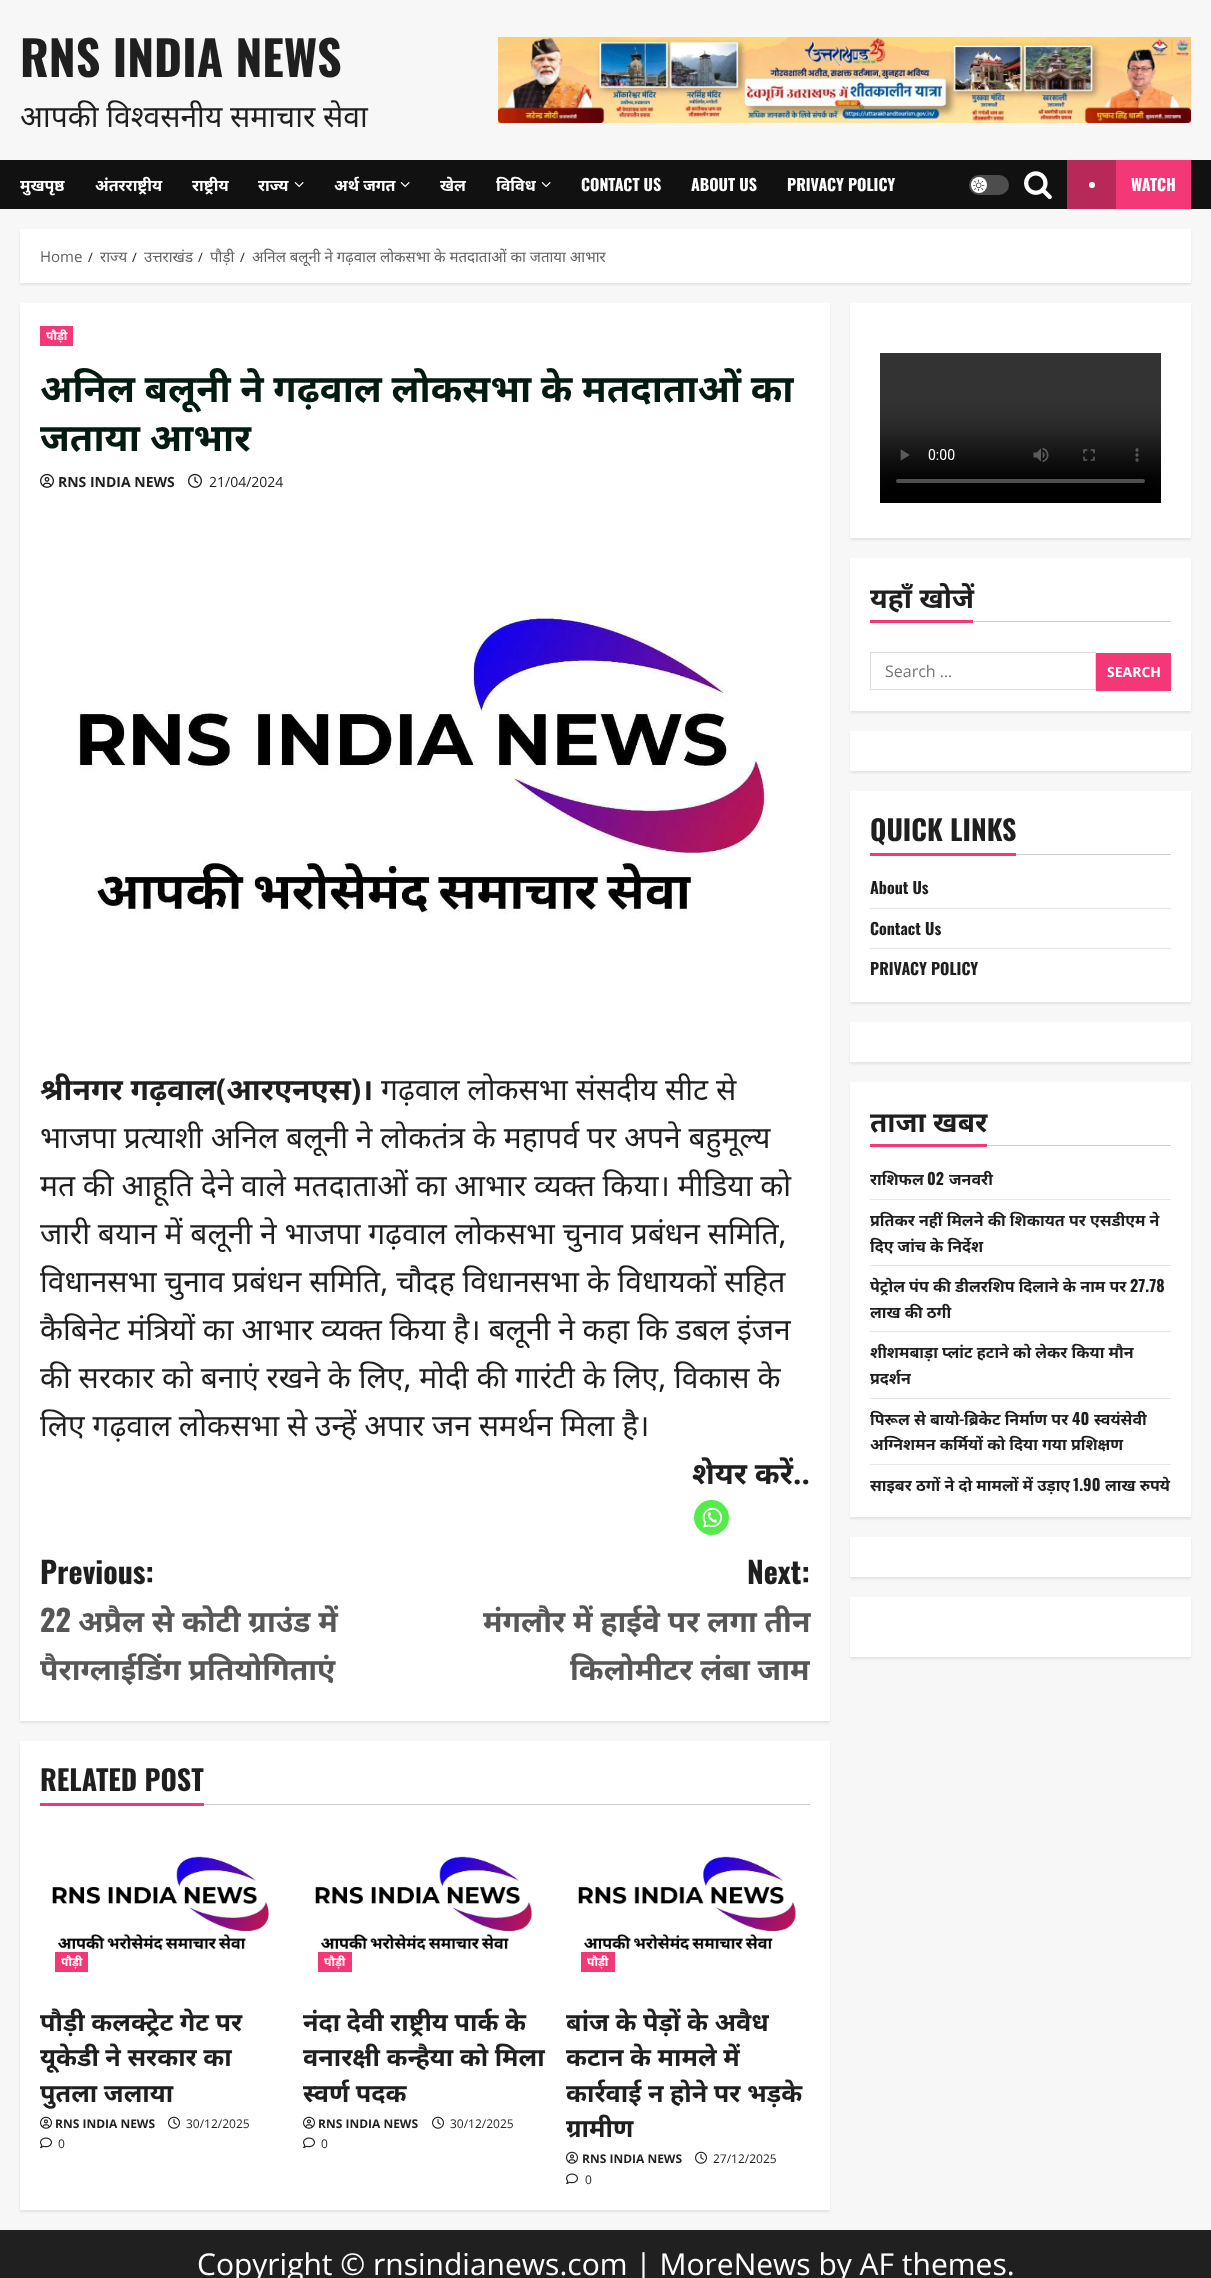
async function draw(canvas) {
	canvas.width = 1211;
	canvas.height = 2278;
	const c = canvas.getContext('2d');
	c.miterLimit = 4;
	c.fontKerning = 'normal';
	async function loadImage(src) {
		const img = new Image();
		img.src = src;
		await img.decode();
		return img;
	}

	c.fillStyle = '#f7f7f7';
	c.fillRect(0, 0, 1211, 2278);
	c.font = 'bold 48px Oswald';
	c.fillStyle = '#1f1f1f';
	c.fillText('RNS INDIA NEWS', 20, 77);
	c.font = '30px Noto Sans';
	c.fillText('आपकी विश्वसनीय समाचार सेवा', 20, 127);
	c.drawImage(await loadImage('img1.png'), 498, 37, 693, 86);
	c.fillStyle = '#111';
	c.fillRect(0, 160, 1211, 49);
	c.font = 'bold 16px Noto Sans';
	c.fillStyle = '#fff';
	for (const [text, x, y] of [
		['मुखपृष्ठ', 20, 191],
		['अंतरराष्ट्रीय', 95, 191],
		['राष्ट्रीय', 192, 191],
		['राज्य', 258, 191],
	]) {
		c.fillText(text, x, y);
	}
	c.drawImage(await loadImage('img2.png'), 294, 182, 10, 6);
	c.fillText('अर्थ जगत', 334, 191);
	c.drawImage(await loadImage('img2.png'), 400, 182, 10, 6);
	c.fillText('खेल', 440, 191);
	c.fillText('विविध', 496, 191);
	c.drawImage(await loadImage('img2.png'), 541, 182, 10, 6);
	c.font = 'bold 16px Oswald';
	for (const [text, x, y] of [
		['CONTACT US', 581, 191],
		['ABOUT US', 691, 191],
		['PRIVACY POLICY', 787, 191],
	]) {
		c.fillText(text, x, y);
	}
	c.fillStyle = '#4d4d4d';
	c.beginPath();
	c.roundRect(969, 175, 40, 20, 10);
	c.fill();
	c.fillStyle = '#fff';
	c.beginPath();
	c.arc(979, 185, 8, 0, 2 * Math.PI);
	c.fill();
	c.drawImage(await loadImage('img3.png'), 973, 179, 12, 12);
	c.drawImage(await loadImage('img4.png'), 1024, 171, 28, 29);
	c.fillStyle = '#f43776';
	c.fillRect(1116, 160, 75, 49);
	c.fillStyle = '#b72959';
	c.fillRect(1067, 160, 49, 49);
	c.fillStyle = '#fff';
	c.beginPath();
	c.arc(1092, 185, 3, 0, 2 * Math.PI);
	c.fill();
	c.fillText('WATCH', 1131, 191);
	c.fillStyle = '#00000014';
	c.filter = 'blur(1px)';
	c.beginPath();
	c.rect(20, 231, 1171, 54);
	c.fill();
	c.filter = 'none';
	c.fillStyle = '#fff';
	c.fillRect(20, 229, 1171, 54);
	c.font = '15px Open Sans';
	c.fillStyle = '#626262';
	c.fillText('Home', 40, 262);
	c.font = '13px Open Sans';
	c.fillStyle = '#1f1f1f';
	c.fillText('/', 88, 262);
	c.font = '15px Noto Sans';
	c.fillStyle = '#626262';
	c.fillText('राज्य', 100, 262);
	c.font = '13px Open Sans';
	c.fillStyle = '#1f1f1f';
	c.fillText('/', 132, 262);
	c.font = '15px Noto Sans';
	c.fillStyle = '#626262';
	c.fillText('उत्तराखंड', 144, 262);
	c.font = '13px Open Sans';
	c.fillStyle = '#1f1f1f';
	c.fillText('/', 198, 262);
	c.font = '15px Noto Sans';
	c.fillStyle = '#626262';
	c.fillText('पौड़ी', 210, 262);
	c.font = '13px Open Sans';
	c.fillStyle = '#1f1f1f';
	c.fillText('/', 240, 262);
	c.font = '15px Noto Sans';
	c.fillStyle = '#626262';
	c.fillText('अनिल बलूनी ने गढ़वाल लोकसभा के मतदाताओं का जताया आभार', 252, 262);
	c.fillStyle = '#00000014';
	c.filter = 'blur(1px)';
	c.beginPath();
	c.rect(20, 305, 810, 1418);
	c.fill();
	c.filter = 'none';
	c.fillStyle = '#fff';
	c.fillRect(20, 303, 810, 1418);
	c.fillStyle = '#f43776';
	c.fillRect(40, 326, 33, 20);
	c.font = 'bold 12px Noto Sans';
	c.fillStyle = '#fff';
	c.fillText('पौड़ी', 46, 340);
	c.wordSpacing = '-0.25px';
	c.font = 'bold 38px Noto Sans';
	c.fillStyle = '#031b11';
	c.fillText('अनिल बलूनी ने गढ़वाल लोकसभा के मतदाताओं का', 40, 402);
	c.wordSpacing = '0px';
	c.fillText('जताया आभार', 40, 451);
	c.drawImage(await loadImage('img5.png'), 40, 473, 14, 15);
	c.font = 'bold 14px Open Sans';
	c.fillStyle = '#1f1f1f';
	c.fillText('RNS INDIA NEWS', 58, 487);
	c.drawImage(await loadImage('img6.png'), 188, 473, 14, 15);
	c.font = '14px Open Sans';
	c.fillText('21/04/2024', 209, 487);
	c.drawImage(await loadImage('img7.png'), 78, 611, 690, 303);
	c.font = 'bold 30px Noto Sans';
	c.fillText('श्रीनगर गढ़वाल(आरएनएस)।', 40, 1100);
	c.font = '30px Noto Sans';
	for (const [text, x, y] of [
		['गढ़वाल लोकसभा संसदीय सीट से', 381, 1100],
		['भाजपा प्रत्याशी अनिल बलूनी ने लोकतंत्र के महापर्व पर अपने बहुमूल्य', 40, 1148],
		['मत की आहूति देने वाले मतदाताओं का आभार व्यक्त किया। मीडिया को', 40, 1196],
		['जारी बयान में बलूनी ने भाजपा गढ़वाल लोकसभा चुनाव प्रबंधन समिति,', 40, 1244],
		['विधानसभा चुनाव प्रबंधन समिति, चौदह विधानसभा के विधायकों सहित', 40, 1292],
		['कैबिनेट मंत्रियों का आभार व्यक्त किया है। बलूनी ने कहा कि डबल इंजन', 40, 1340],
		['की सरकार को बनाएं रखने के लिए, मोदी की गारंटी के लिए, विकास के', 40, 1388],
		['लिए गढ़वाल लोकसभा से उन्हें अपार जन समर्थन मिला है।', 40, 1436],
	]) {
		c.fillText(text, x, y);
	}
	c.font = 'bold 30px Noto Sans';
	c.fillText('शेयर करें..', 692, 1484);
	c.fillStyle = '#55eb4c';
	c.beginPath();
	c.arc(711.5, 1517.5, 17.5, 0, 2 * Math.PI);
	c.fill();
	c.drawImage(await loadImage('img8.png'), 702, 1507, 20, 21);
	c.font = 'bold 30px Oswald';
	c.fillStyle = '#1f1f1f';
	c.fillText('Previous:', 40, 1584);
	c.fillStyle = '#575757';
	c.fillText('22', 40, 1632);
	c.font = 'bold 30px Noto Sans';
	c.fillText('अप्रैल से कोटी ग्राउंड में', 78, 1632);
	c.fillText('पैराग्लाईडिंग प्रतियोगिताएं', 40, 1680);
	c.font = 'bold 30px Oswald';
	c.fillStyle = '#1f1f1f';
	c.fillText('Next:', 747, 1584);
	c.font = 'bold 30px Noto Sans';
	c.fillStyle = '#575757';
	c.fillText('मंगलौर में हाईवे पर लगा तीन', 483, 1632);
	c.fillText('किलोमीटर लंबा जाम', 570, 1680);
	c.fillStyle = '#00000014';
	c.filter = 'blur(1px)';
	c.beginPath();
	c.rect(20, 1743, 810, 469);
	c.fill();
	c.filter = 'none';
	c.fillStyle = '#fff';
	c.fillRect(20, 1741, 810, 469);
	c.fillStyle = '#ccc';
	c.fillRect(204, 1804, 606, 1);
	c.font = 'bold 28px Oswald';
	c.fillStyle = '#1f1f1f';
	c.fillText('RELATED POST', 40, 1791);
	c.fillStyle = '#f43776';
	c.fillRect(40, 1803, 164, 3);
	c.drawImage(await loadImage('img9.png'), 40, 1825, 243, 162);
	c.fillRect(55, 1952, 33, 20);
	c.font = 'bold 12px Noto Sans';
	c.fillStyle = '#fff';
	c.fillText('पौड़ी', 61, 1966);
	c.font = 'bold 25.25px Noto Sans';
	c.fillStyle = '#1f1f1f';
	for (const [text, x, y] of [
		['पौड़ी कलक्ट्रेट गेट पर', 40, 2031],
		['यूकेडी ने सरकार का', 40, 2066],
		['पुतला जलाया', 40, 2102],
	]) {
		c.fillText(text, x, y);
	}
	c.drawImage(await loadImage('img10.png'), 40, 2116, 12, 13);
	c.font = 'bold 12px Open Sans';
	c.fillText('RNS INDIA NEWS', 55, 2128);
	c.drawImage(await loadImage('img11.png'), 168, 2116, 12, 13);
	c.font = '12px Open Sans';
	c.fillText('30/12/2025', 186, 2128);
	c.drawImage(await loadImage('img12.png'), 40, 2137, 12, 11);
	c.fillText('0', 58, 2148);
	c.drawImage(await loadImage('img9.png'), 303, 1825, 243, 162);
	c.fillStyle = '#f43776';
	c.fillRect(318, 1952, 34, 20);
	c.font = 'bold 12px Noto Sans';
	c.fillStyle = '#fff';
	c.fillText('पौड़ी', 324, 1966);
	c.font = 'bold 25.25px Noto Sans';
	c.fillStyle = '#1f1f1f';
	for (const [text, x, y] of [
		['नंदा देवी राष्ट्रीय पार्क के', 303, 2031],
		['वनारक्षी कन्हैया को मिला', 303, 2066],
		['स्वर्ण पदक', 303, 2102],
	]) {
		c.fillText(text, x, y);
	}
	c.drawImage(await loadImage('img10.png'), 303, 2116, 12, 13);
	c.font = 'bold 12px Open Sans';
	c.fillText('RNS INDIA NEWS', 318, 2128);
	c.drawImage(await loadImage('img11.png'), 432, 2116, 12, 13);
	c.font = '12px Open Sans';
	c.fillText('30/12/2025', 450, 2128);
	c.drawImage(await loadImage('img12.png'), 303, 2137, 12, 11);
	c.fillText('0', 321, 2148);
	c.drawImage(await loadImage('img13.png'), 566, 1825, 244, 162);
	c.fillStyle = '#f43776';
	c.fillRect(581, 1952, 34, 20);
	c.font = 'bold 12px Noto Sans';
	c.fillStyle = '#fff';
	c.fillText('पौड़ी', 587, 1966);
	c.font = 'bold 25.25px Noto Sans';
	c.fillStyle = '#1f1f1f';
	for (const [text, x, y] of [
		['बांज के पेड़ों के अवैध', 566, 2031],
		['कटान के मामले में', 566, 2066],
		['कार्रवाई न होने पर भड़के', 566, 2102],
		['ग्रामीण', 566, 2137],
	]) {
		c.fillText(text, x, y);
	}
	c.drawImage(await loadImage('img10.png'), 566, 2151, 12, 13);
	c.font = 'bold 12px Open Sans';
	c.fillText('RNS INDIA NEWS', 582, 2163);
	c.drawImage(await loadImage('img11.png'), 695, 2151, 12, 13);
	c.font = '12px Open Sans';
	c.fillText('27/12/2025', 713, 2163);
	c.drawImage(await loadImage('img12.png'), 566, 2173, 12, 11);
	c.fillText('0', 585, 2184);
	c.fillStyle = '#00000014';
	c.filter = 'blur(1px)';
	c.beginPath();
	c.rect(850, 305, 341, 235);
	c.fill();
	c.filter = 'none';
	c.fillStyle = '#fff';
	c.fillRect(850, 303, 341, 235);
	c.drawImage(await loadImage('img14.png'), 880, 353, 281, 150);
	c.fillStyle = '#00000014';
	c.filter = 'blur(1px)';
	c.beginPath();
	c.rect(850, 560, 341, 153);
	c.fill();
	c.filter = 'none';
	c.fillStyle = '#fff';
	c.fillRect(850, 558, 341, 153);
	c.fillStyle = '#ccc';
	c.fillRect(973, 621, 198, 1);
	c.font = 'bold 28px Noto Sans';
	c.fillStyle = '#1f1f1f';
	c.fillText('यहाँ खोजें', 870, 608);
	c.fillStyle = '#f43776';
	c.fillRect(870, 620, 103, 3);
	c.strokeStyle = '#dcdcdc';
	c.strokeRect(870.5, 652.5, 225, 37);
	c.font = '16px Open Sans';
	c.fillStyle = '#757575';
	c.fillText('Search …', 885, 677);
	c.fillStyle = '#f43776';
	c.fillRect(1096, 653, 75, 38);
	c.font = 'bold 14px Open Sans';
	c.fillStyle = '#fff';
	c.fillText('SEARCH', 1107, 677);
	c.fillStyle = '#00000014';
	c.filter = 'blur(1px)';
	c.beginPath();
	c.rect(850, 733, 341, 40);
	c.fill();
	c.filter = 'none';
	c.fillStyle = '#fff';
	c.fillRect(850, 731, 341, 40);
	c.fillStyle = '#00000014';
	c.filter = 'blur(1px)';
	c.beginPath();
	c.rect(850, 793, 341, 211);
	c.fill();
	c.filter = 'none';
	c.fillStyle = '#fff';
	c.fillRect(850, 791, 341, 211);
	c.fillStyle = '#ccc';
	c.fillRect(1016, 854, 155, 1);
	c.font = 'bold 28px Oswald';
	c.fillStyle = '#1f1f1f';
	c.fillText('QUICK LINKS', 870, 841);
	c.fillStyle = '#f43776';
	c.fillRect(870, 853, 146, 3);
	c.fillStyle = '#e6e6e6';
	c.fillRect(870, 908, 301, 1);
	c.font = 'bold 16px Oswald';
	c.fillStyle = '#1f1f1f';
	c.fillText('About Us', 870, 894);
	c.fillStyle = '#e6e6e6';
	c.fillRect(870, 948, 301, 1);
	c.fillStyle = '#1f1f1f';
	c.fillText('Contact Us', 870, 935);
	c.fillText('PRIVACY POLICY', 870, 975);
	c.fillStyle = '#00000014';
	c.filter = 'blur(1px)';
	c.beginPath();
	c.rect(850, 1024, 341, 40);
	c.fill();
	c.filter = 'none';
	c.fillStyle = '#fff';
	c.fillRect(850, 1022, 341, 40);
	c.fillStyle = '#00000014';
	c.filter = 'blur(1px)';
	c.beginPath();
	c.rect(850, 1084, 341, 435);
	c.fill();
	c.filter = 'none';
	c.fillStyle = '#fff';
	c.fillRect(850, 1082, 341, 435);
	c.fillStyle = '#ccc';
	c.fillRect(987, 1145, 184, 1);
	c.font = 'bold 28px Noto Sans';
	c.fillStyle = '#1f1f1f';
	c.fillText('ताजा खबर', 870, 1132);
	c.fillStyle = '#f43776';
	c.fillRect(870, 1144, 117, 3);
	c.fillStyle = '#e6e6e6';
	c.fillRect(870, 1199, 301, 1);
	c.font = 'bold 16px Noto Sans';
	c.fillStyle = '#1f1f1f';
	c.fillText('राशिफल', 870, 1185);
	c.font = 'bold 16px Oswald';
	c.fillText('02', 927, 1185);
	c.font = 'bold 16px Noto Sans';
	c.fillText('जनवरी', 949, 1185);
	c.fillStyle = '#e6e6e6';
	c.fillRect(870, 1265, 301, 1);
	c.fillStyle = '#1f1f1f';
	c.fillText('प्रतिकर नहीं मिलने की शिकायत पर एसडीएम ने', 870, 1226);
	c.fillText('दिए जांच के निर्देश', 870, 1252);
	c.fillStyle = '#e6e6e6';
	c.fillRect(870, 1331, 301, 1);
	c.fillStyle = '#1f1f1f';
	c.fillText('पेट्रोल पंप की डीलरशिप दिलाने के नाम पर', 870, 1292);
	c.font = 'bold 16px Oswald';
	c.fillText('27.78', 1130, 1292);
	c.font = 'bold 16px Noto Sans';
	c.fillText('लाख की ठगी', 870, 1318);
	c.fillStyle = '#e6e6e6';
	c.fillRect(870, 1398, 301, 1);
	c.fillStyle = '#1f1f1f';
	c.fillText('शीशमबाड़ा प्लांट हटाने को लेकर किया मौन', 870, 1358);
	c.fillText('प्रदर्शन', 870, 1384);
	c.fillStyle = '#e6e6e6';
	c.fillRect(870, 1464, 301, 1);
	c.fillStyle = '#1f1f1f';
	c.fillText('पिरूल से बायो', 870, 1425);
	c.font = 'bold 16px Oswald';
	c.fillText('-', 959, 1425);
	c.font = 'bold 16px Noto Sans';
	c.fillText('ब्रिकेट निर्माण पर', 964, 1425);
	c.font = 'bold 16px Oswald';
	c.fillText('40', 1072, 1425);
	c.font = 'bold 16px Noto Sans';
	for (const [text, x, y] of [
		['स्वयंसेवी', 1094, 1425],
		['अग्निशमन कर्मियों को दिया गया प्रशिक्षण', 870, 1450],
		['साइबर ठगों ने दो मामलों में उड़ाए', 870, 1491],
	]) {
		c.fillText(text, x, y);
	}
	c.font = 'bold 16px Oswald';
	c.fillText('1.90', 1073, 1491);
	c.font = 'bold 16px Noto Sans';
	c.fillText('लाख रुपये', 1105, 1491);
	c.fillStyle = '#00000014';
	c.filter = 'blur(1px)';
	c.beginPath();
	c.rect(850, 1539, 341, 40);
	c.fill();
	c.filter = 'none';
	c.fillStyle = '#fff';
	c.fillRect(850, 1537, 341, 40);
	c.fillStyle = '#00000014';
	c.filter = 'blur(1px)';
	c.beginPath();
	c.rect(850, 1599, 341, 60);
	c.fill();
	c.filter = 'none';
	c.fillStyle = '#fff';
	c.fillRect(850, 1597, 341, 60);
	c.fillStyle = '#202020';
	c.fillRect(0, 2230, 1211, 48);
	c.font = '30px Open Sans';
	c.fillStyle = '#fff';
	c.fillText('Copyright © rnsindianews.com | MoreNews by AF themes.', 197, 2275);
}

draw(document.querySelector('canvas'));
